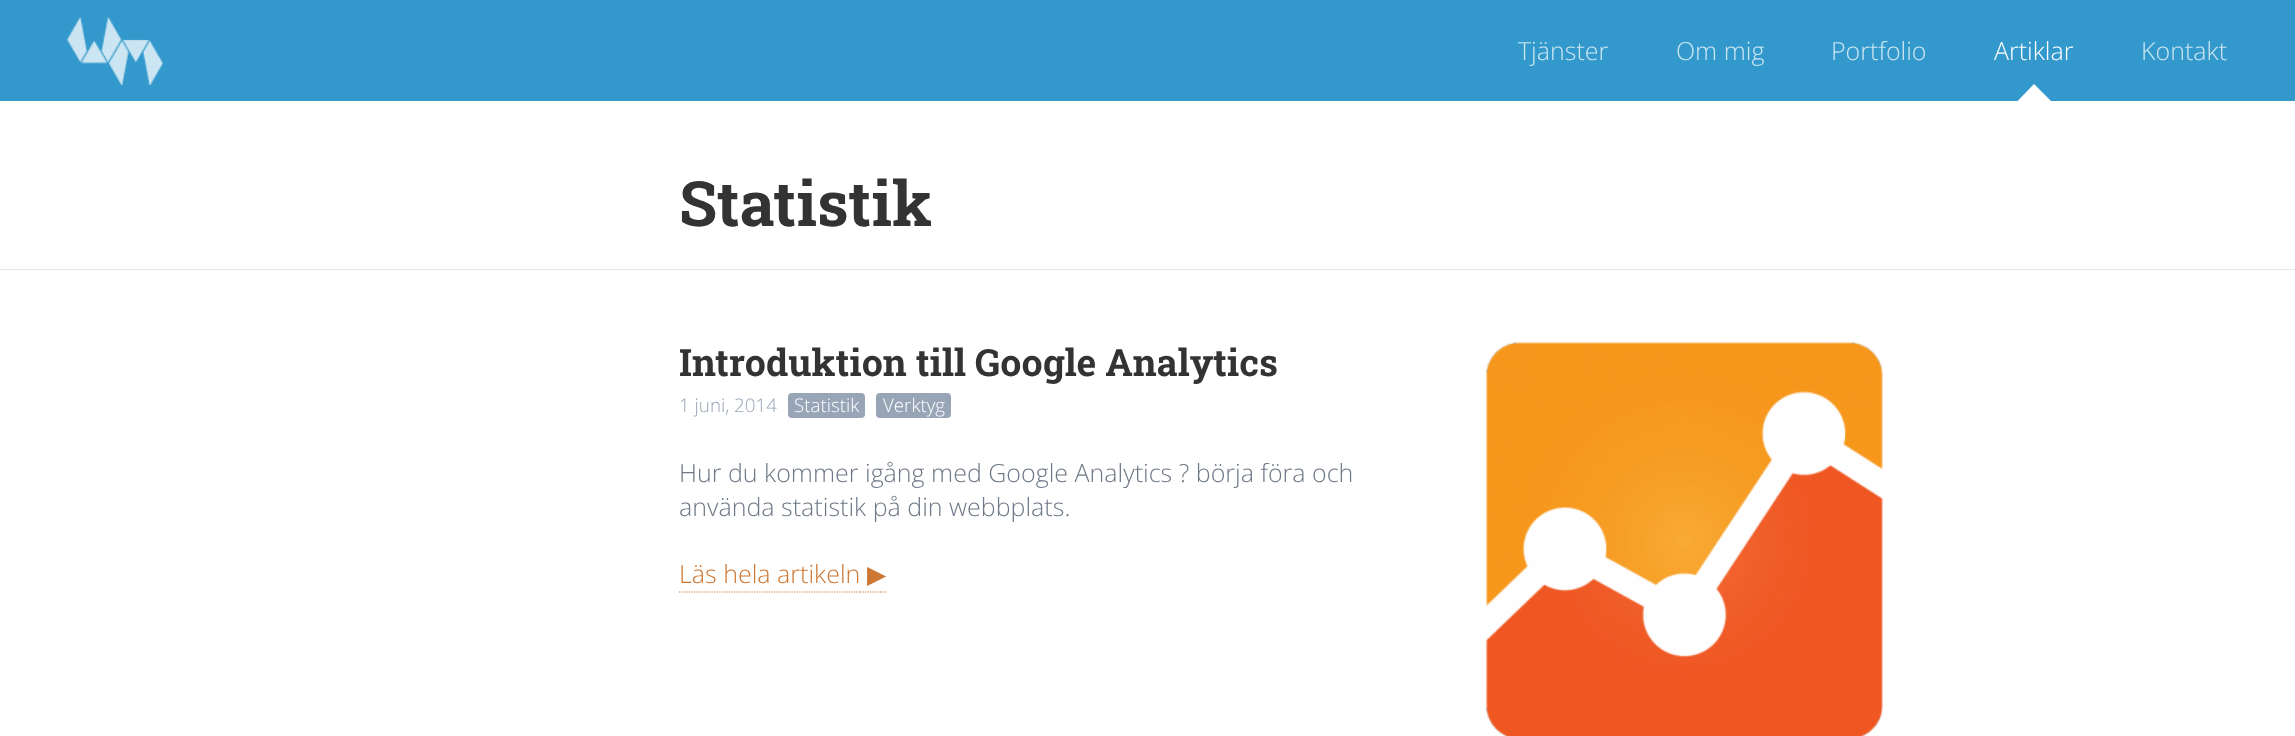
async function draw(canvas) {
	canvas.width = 2295;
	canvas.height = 736;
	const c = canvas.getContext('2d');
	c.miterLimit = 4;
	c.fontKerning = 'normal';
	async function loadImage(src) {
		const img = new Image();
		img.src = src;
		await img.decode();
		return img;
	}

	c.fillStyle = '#fff';
	c.fillRect(0, 0, 2295, 736);
	c.fillStyle = '#39c';
	c.fillRect(0, 0, 2295, 101);
	c.drawImage(await loadImage('img1.png'), 67, 17, 96, 68);
	c.font = '300 25px Open Sans';
	c.fillStyle = '#cce6f2';
	for (const [text, x, y] of [
		['Tjänster', 1518, 60],
		['Om mig', 1676, 60],
		['Portfolio', 1831, 60],
	]) {
		c.fillText(text, x, y);
	}
	c.fillStyle = '#fff';
	c.fillText('Artiklar', 1994, 60);
	c.save();
	c.beginPath();
	c.rect(0, 0, 2295, 101);
	c.clip();
	c.beginPath();
	c.moveTo(2034, 84);
	c.lineTo(2061, 111);
	c.lineTo(2034, 137);
	c.lineTo(2008, 111);
	c.closePath();
	c.fill();
	c.restore();
	c.fillStyle = '#cce6f2';
	c.fillText('Kontakt', 2141, 60);
	c.font = 'bold 62.5px Roboto Slab';
	c.fillStyle = '#333';
	c.fillText('Statistik', 679, 226);
	c.fillStyle = '#e7e8ea';
	c.fillRect(0, 269, 2295, 1);
	c.font = 'bold 37.5px Roboto Slab';
	c.fillStyle = '#333';
	c.fillText('Introduktion till Google Analytics', 679, 376);
	c.drawImage(await loadImage('img2.png'), 1486, 342, 397, 394);
	c.font = '300 18.75px Open Sans';
	c.fillStyle = '#98a5b7';
	c.fillText('1 juni, 2014', 679, 412);
	c.beginPath();
	c.roundRect(788, 393, 77, 25, 4);
	c.fill();
	c.fillStyle = '#fff';
	c.fillText('Statistik', 794, 412);
	c.fillStyle = '#98a5b7';
	c.beginPath();
	c.roundRect(876, 393, 75, 25, 4);
	c.fill();
	c.fillStyle = '#fff';
	c.fillText('Verktyg', 883, 412);
	c.font = '300 25px Open Sans';
	c.fillStyle = '#6e7886';
	c.fillText('Hur du kommer igång med Google Analytics ? börja föra och', 679, 482);
	c.fillText('använda statistik på din webbplats.', 679, 516);
	c.fillStyle = '#c73';
	c.fillText('Läs hela artikeln', 679, 583);
	c.beginPath();
	c.moveTo(679, 592);
	c.lineTo(860, 592);
	c.strokeStyle = '#c73';
	c.lineWidth = 1.2;
	c.setLineDash([1.25, 1.25]);
	c.stroke();
	c.font = '25px DejaVu Sans';
	c.fillText('▶', 867, 583);
	c.beginPath();
	c.moveTo(860, 592);
	c.lineTo(886, 592);
	c.stroke();
}

draw(document.querySelector('canvas'));
